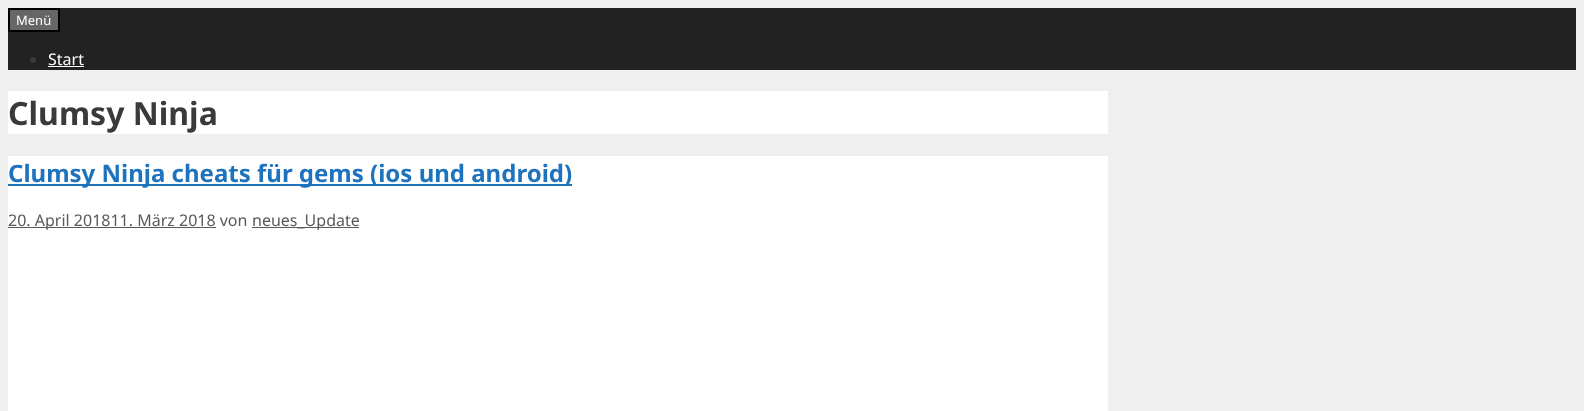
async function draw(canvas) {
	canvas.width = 1584;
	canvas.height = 411;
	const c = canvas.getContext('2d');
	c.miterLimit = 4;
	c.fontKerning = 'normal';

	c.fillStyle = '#efefef';
	c.fillRect(0, 0, 1584, 411);
	c.fillStyle = '#222';
	c.fillRect(8, 8, 1568, 62);
	c.fillStyle = '#666';
	c.beginPath();
	c.rect(9, 9, 50, 22);
	c.fill();
	c.strokeStyle = '#000';
	c.lineWidth = 2;
	c.stroke();
	c.font = '13px Noto Sans';
	c.fillStyle = '#fff';
	c.fillText('Menü', 16, 25);
	c.fillStyle = '#3a3a3a';
	c.beginPath();
	c.arc(33, 60, 3, 0, 2 * Math.PI);
	c.fill();
	c.font = '16px Noto Sans';
	c.fillStyle = '#fff';
	c.fillText('Start', 48, 65);
	c.fillRect(48, 66, 36, 1);
	c.fillRect(8, 91, 1100, 43);
	c.font = 'bold 32px Noto Sans';
	c.fillStyle = '#3a3a3a';
	c.fillText('Clumsy Ninja', 8, 125);
	c.fillStyle = '#fff';
	c.fillRect(8, 156, 1100, 255);
	c.fillStyle = '#1e73be';
	c.fillRect(8, 184, 564, 2);
	c.font = 'bold 24px Noto Sans';
	c.fillText('Clumsy Ninja cheats für gems (ios und android)', 8, 182);
	c.fillStyle = '#595959';
	c.fillRect(8, 227, 208, 1);
	c.font = '16px Noto Sans';
	c.fillText('20. April 201811. März 2018 von', 8, 226);
	c.fillRect(252, 227, 107, 1);
	c.fillText('neues_Update', 252, 226);
}

draw(document.querySelector('canvas'));
